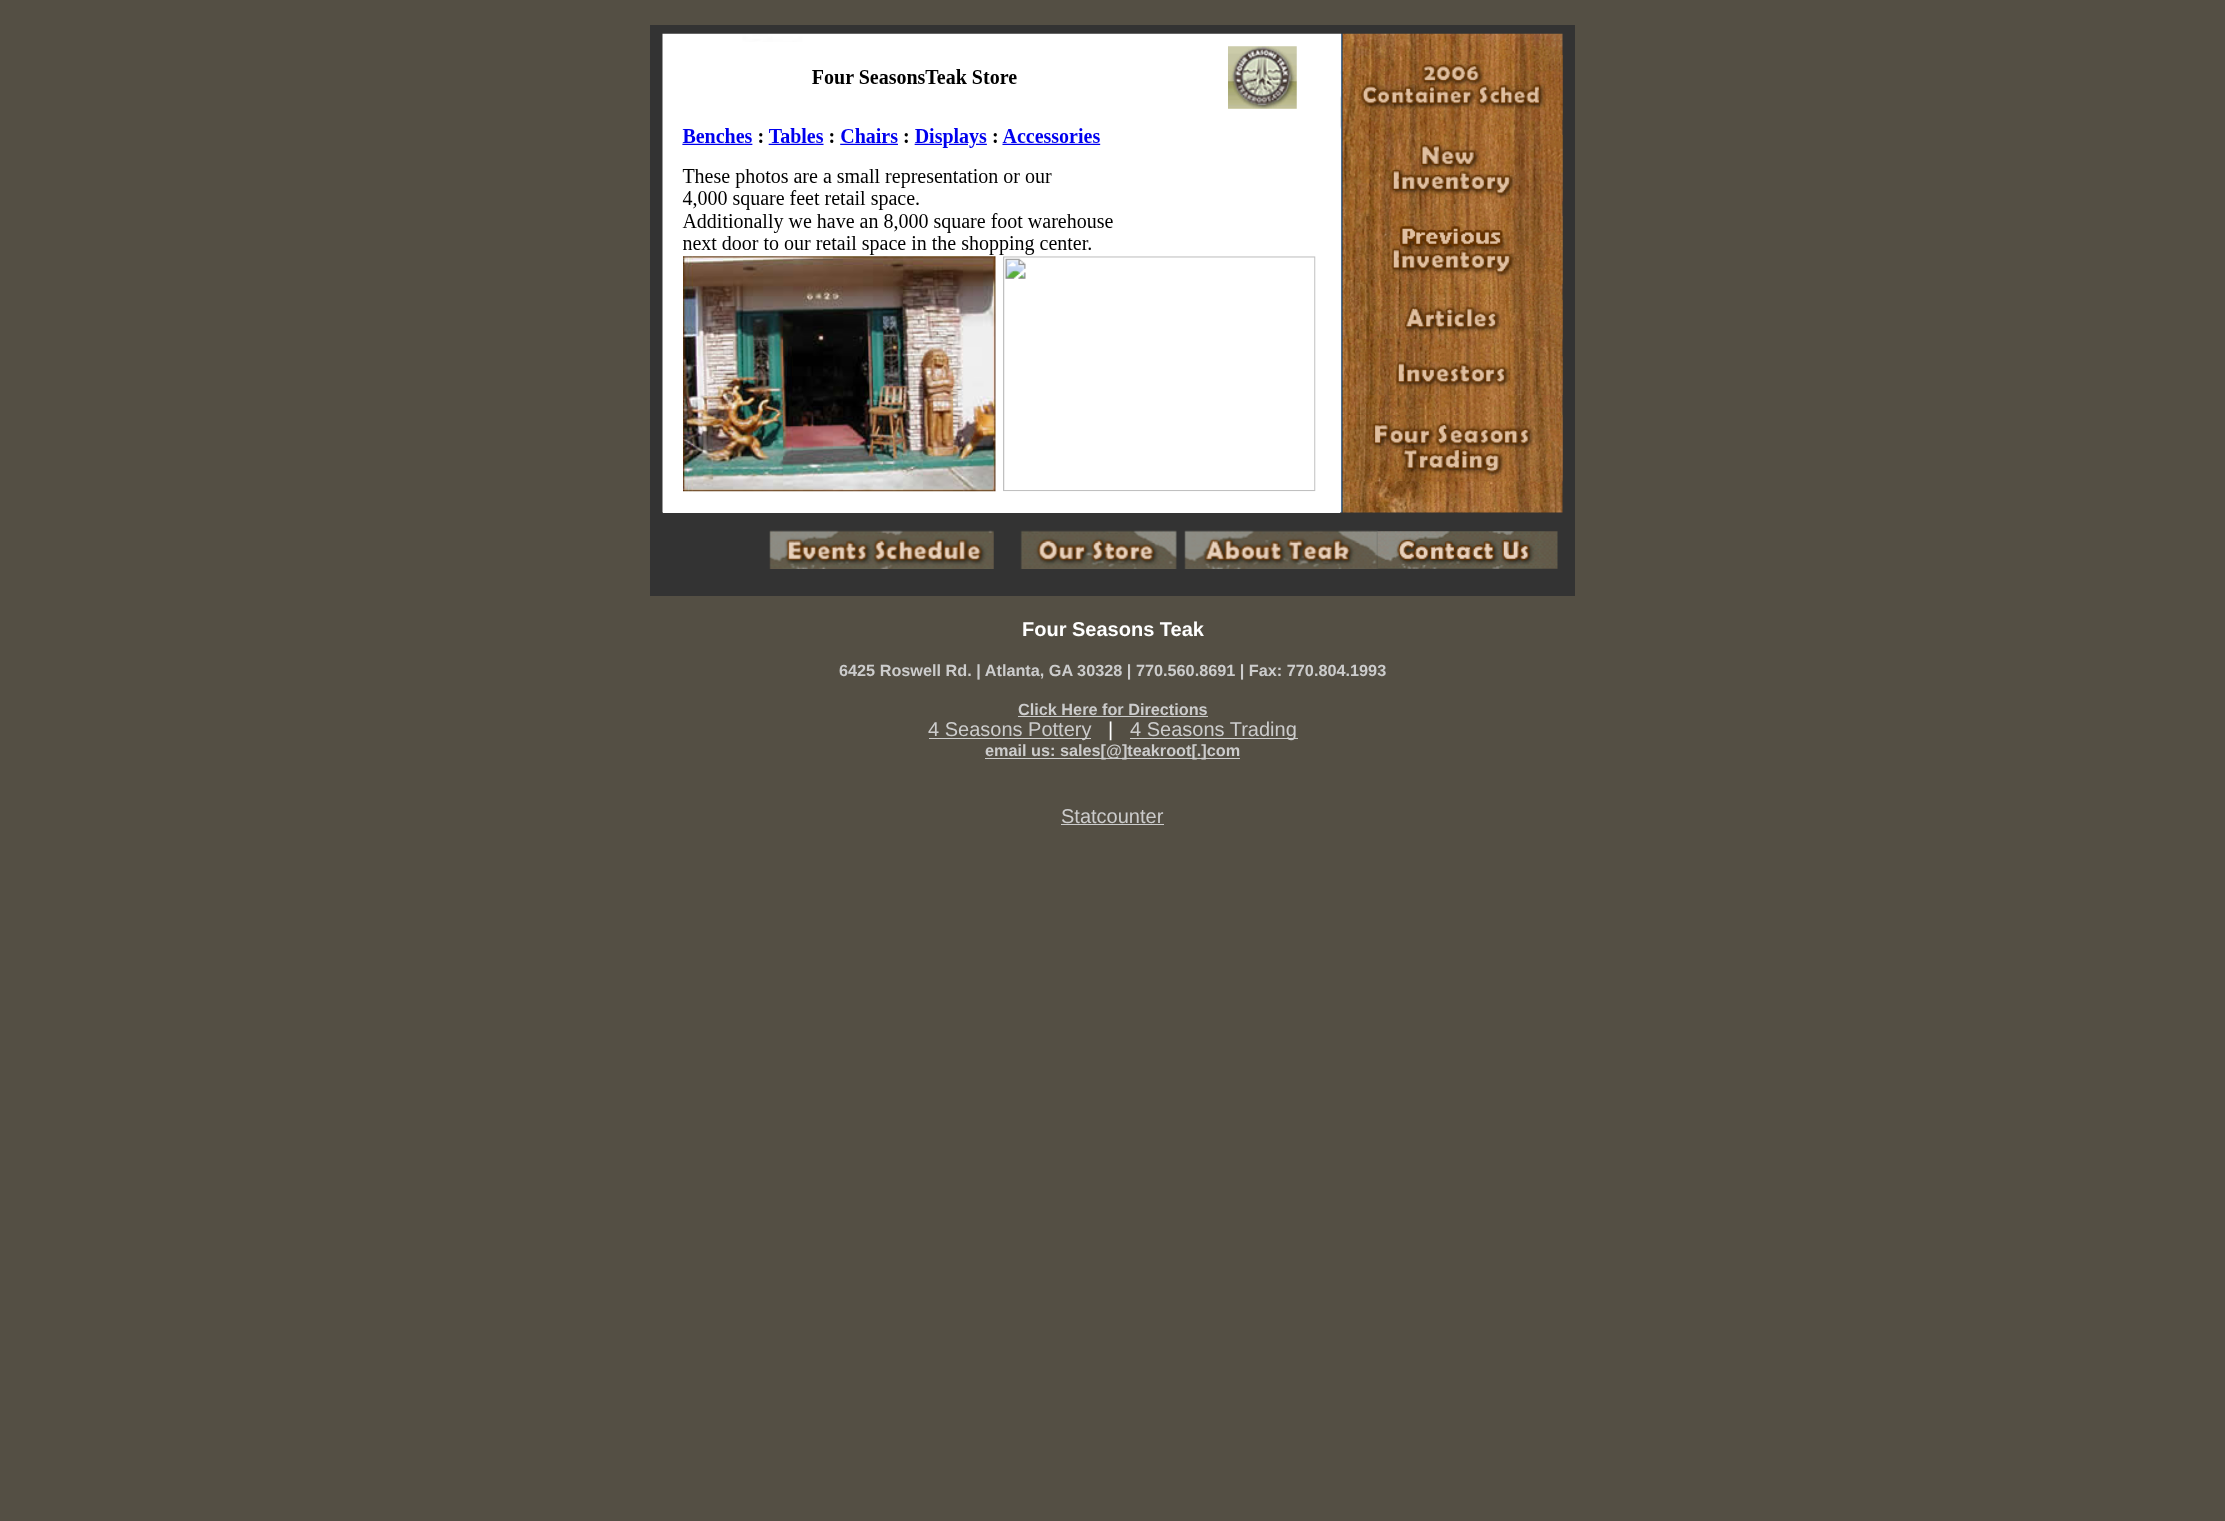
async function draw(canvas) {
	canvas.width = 2225;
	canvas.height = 1521;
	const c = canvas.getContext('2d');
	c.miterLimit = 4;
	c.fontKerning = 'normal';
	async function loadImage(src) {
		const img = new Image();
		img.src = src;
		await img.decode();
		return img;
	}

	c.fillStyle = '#544f44';
	c.fillRect(0, 0, 2225, 1521);
	c.fillStyle = '#333';
	c.fillRect(650, 25, 925, 571);
	c.fillStyle = '#fff';
	c.fillRect(663, 512, 677, 1);
	c.drawImage(await loadImage('img1.png'), 662, 33, 678, 480);
	c.drawImage(await loadImage('img2.png'), 672, 42, 644, 450);
	c.drawImage(await loadImage('img3.png'), 1340, 33, 223, 480);
	c.drawImage(await loadImage('img4.png'), 1343, 55, 220, 65);
	c.drawImage(await loadImage('img5.png'), 1343, 135, 220, 67);
	c.drawImage(await loadImage('img6.png'), 1342, 216, 221, 68);
	c.drawImage(await loadImage('img7.png'), 1342, 300, 221, 39);
	c.drawImage(await loadImage('img8.png'), 1342, 356, 221, 39);
	c.drawImage(await loadImage('img9.png'), 1342, 415, 221, 67);
	c.drawImage(await loadImage('img10.png'), 769, 530, 225, 39);
	c.drawImage(await loadImage('img11.png'), 1020, 530, 157, 39);
	c.drawImage(await loadImage('img12.png'), 1184, 530, 194, 39);
	c.drawImage(await loadImage('img13.png'), 1377, 531, 181, 38);
	c.font = 'bold 20px Liberation Sans';
	c.fillText('Four Seasons Teak', 1022, 636);
	c.font = 'bold 16.25px Liberation Sans';
	c.fillStyle = '#ccc';
	c.fillText('6425 Roswell Rd. | Atlanta, GA 30328 | 770.560.8691 | Fax: 770.804.1993', 839, 676);
	c.fillText('Click Here for Directions', 1018, 715);
	c.fillRect(1018, 716, 190, 1);
	c.fillRect(929, 738, 162, 1);
	c.font = '20px Liberation Sans';
	c.fillText('4 Seasons Pottery', 928, 736);
	c.fillStyle = '#fff';
	c.fillText('|', 1108, 736);
	c.fillStyle = '#ccc';
	c.fillRect(1130, 738, 168, 1);
	c.fillText('4 Seasons Trading', 1130, 736);
	c.fillRect(985, 758, 255, 1);
	c.font = 'bold 16.25px Liberation Sans';
	c.fillText('email us: sales[@]teakroot[.]com', 985, 756);
	c.font = '20px Liberation Sans';
	c.fillText('Statcounter', 1061, 823);
	c.fillRect(1061, 824, 103, 1);
}

draw(document.querySelector('canvas'));
